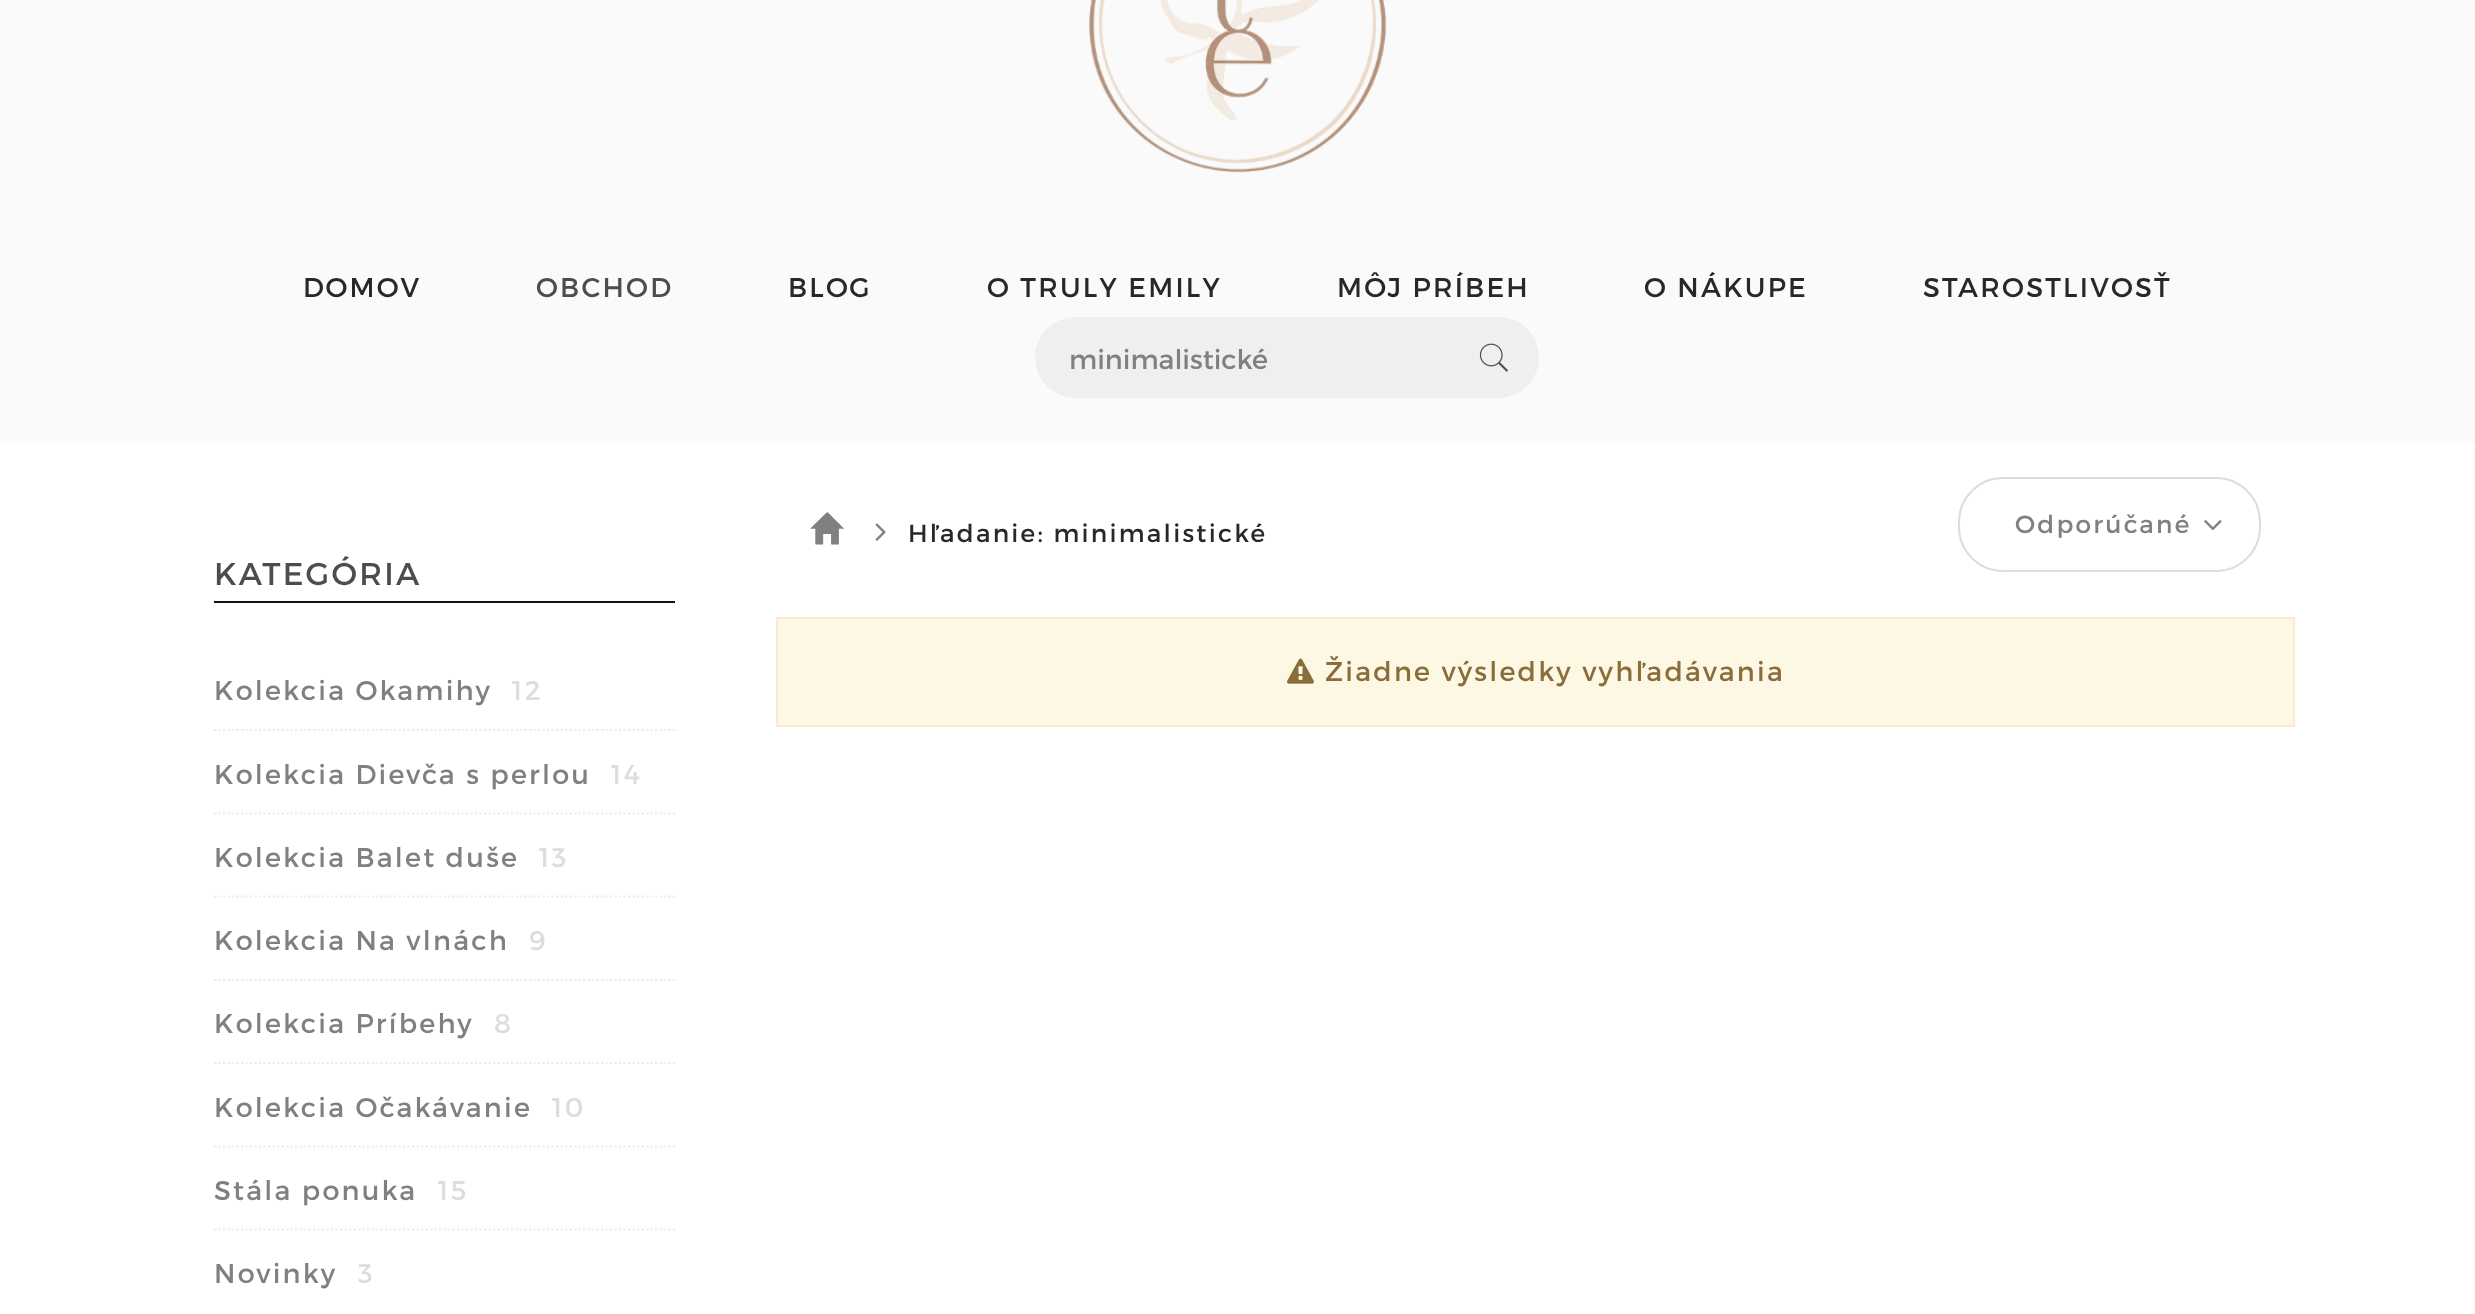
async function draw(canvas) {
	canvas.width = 2475;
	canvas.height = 1314;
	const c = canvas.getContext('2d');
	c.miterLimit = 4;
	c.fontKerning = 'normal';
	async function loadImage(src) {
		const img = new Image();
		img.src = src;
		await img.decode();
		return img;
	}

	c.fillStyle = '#fff';
	c.fillRect(0, 0, 2475, 1314);
	c.fillStyle = '#fafafa';
	c.fillRect(0, 0, 2475, 443);
	c.drawImage(await loadImage('img1.png'), 1089, 0, 298, 173);
	c.letterSpacing = '2.25px';
	c.font = '27px Montserrat';
	c.fillStyle = '#282828';
	c.fillText('DOMOV', 303, 297);
	c.fillStyle = '#4d4d4d';
	c.fillText('OBCHOD', 536, 297);
	c.fillStyle = '#282828';
	for (const [text, x, y] of [
		['BLOG', 788, 297],
		['O TRULY EMILY', 987, 297],
		['MÔJ PRÍBEH', 1337, 297],
		['O NÁKUPE', 1644, 297],
		['STAROSTLIVOSŤ', 1923, 297],
	]) {
		c.fillText(text, x, y);
	}
	c.fillStyle = '#efefef';
	c.beginPath();
	c.roundRect(1035, 317, 416, 81, [40.5, 0, 0, 40.5]);
	c.fill();
	c.letterSpacing = '0px';
	c.fillStyle = '#808080';
	c.fillText('minimalistické', 1069, 369);
	c.fillStyle = '#efefef';
	c.beginPath();
	c.roundRect(1449, 317, 90, 81, [0, 40.5, 40.5, 0]);
	c.fill();
	c.drawImage(await loadImage('img2.png'), 1479, 343, 29, 29);
	c.fillStyle = '#131313';
	c.fillRect(214, 601, 461, 2);
	c.letterSpacing = '2.25px';
	c.font = '31.5px Montserrat';
	c.fillStyle = '#4d4d4d';
	c.fillText('KATEGÓRIA', 214, 585);
	c.font = '27px Montserrat';
	c.fillStyle = '#808080';
	c.fillText('Kolekcia Okamihy', 214, 700);
	c.fillStyle = '#ddd';
	c.fillText('12', 512, 700);
	c.beginPath();
	c.moveTo(214, 730);
	c.lineTo(675, 730);
	c.strokeStyle = '#ececec';
	c.lineWidth = 2.2;
	c.setLineDash([2.25, 2.25]);
	c.stroke();
	c.fillStyle = '#808080';
	c.fillText('Kolekcia Dievča s perlou', 214, 784);
	c.fillStyle = '#ddd';
	c.fillText('14', 611, 784);
	c.beginPath();
	c.moveTo(214, 813.5);
	c.lineTo(675, 813.5);
	c.stroke();
	c.fillStyle = '#808080';
	c.fillText('Kolekcia Balet duše', 214, 867);
	c.fillStyle = '#ddd';
	c.fillText('13', 539, 867);
	c.beginPath();
	c.moveTo(214, 896.5);
	c.lineTo(675, 896.5);
	c.stroke();
	c.fillStyle = '#808080';
	c.fillText('Kolekcia Na vlnách', 214, 950);
	c.fillStyle = '#ddd';
	c.fillText('9', 529, 950);
	c.beginPath();
	c.moveTo(214, 980);
	c.lineTo(675, 980);
	c.stroke();
	c.fillStyle = '#808080';
	c.fillText('Kolekcia Príbehy', 214, 1033);
	c.fillStyle = '#ddd';
	c.fillText('8', 494, 1033);
	c.beginPath();
	c.moveTo(214, 1063);
	c.lineTo(675, 1063);
	c.stroke();
	c.fillStyle = '#808080';
	c.fillText('Kolekcia Očakávanie', 214, 1117);
	c.fillStyle = '#ddd';
	c.fillText('10', 552, 1117);
	c.beginPath();
	c.moveTo(214, 1146.5);
	c.lineTo(675, 1146.5);
	c.stroke();
	c.fillStyle = '#808080';
	c.fillText('Stála ponuka', 214, 1200);
	c.fillStyle = '#ddd';
	c.fillText('15', 438, 1200);
	c.beginPath();
	c.moveTo(214, 1229.5);
	c.lineTo(675, 1229.5);
	c.stroke();
	c.fillStyle = '#808080';
	c.fillText('Novinky', 214, 1283);
	c.fillStyle = '#ddd';
	c.fillText('3', 358, 1283);
	c.drawImage(await loadImage('img3.png'), 810, 512, 34, 33);
	c.drawImage(await loadImage('img4.png'), 875, 523, 11, 18);
	c.font = '24.75px Montserrat';
	c.fillStyle = '#282828';
	c.fillText('Hľadanie: minimalistické', 908, 542);
	c.beginPath();
	c.roundRect(1959, 478, 301, 93, 44);
	c.strokeStyle = '#ddd';
	c.lineWidth = 2;
	c.setLineDash([]);
	c.stroke();
	c.fillStyle = '#808080';
	c.fillText('Odporúčané', 2015, 533);
	c.drawImage(await loadImage('img5.png'), 2204, 520, 18, 11);
	c.fillStyle = '#fcf8e3';
	c.beginPath();
	c.rect(777, 618, 1517, 108);
	c.fill();
	c.strokeStyle = '#faebcc';
	c.stroke();
	c.drawImage(await loadImage('img6.png'), 1287, 658, 27, 26);
	c.font = '27px Montserrat';
	c.fillStyle = '#8a6d3b';
	c.fillText('Žiadne výsledky vyhľadávania', 1325, 681);
}

draw(document.querySelector('canvas'));
